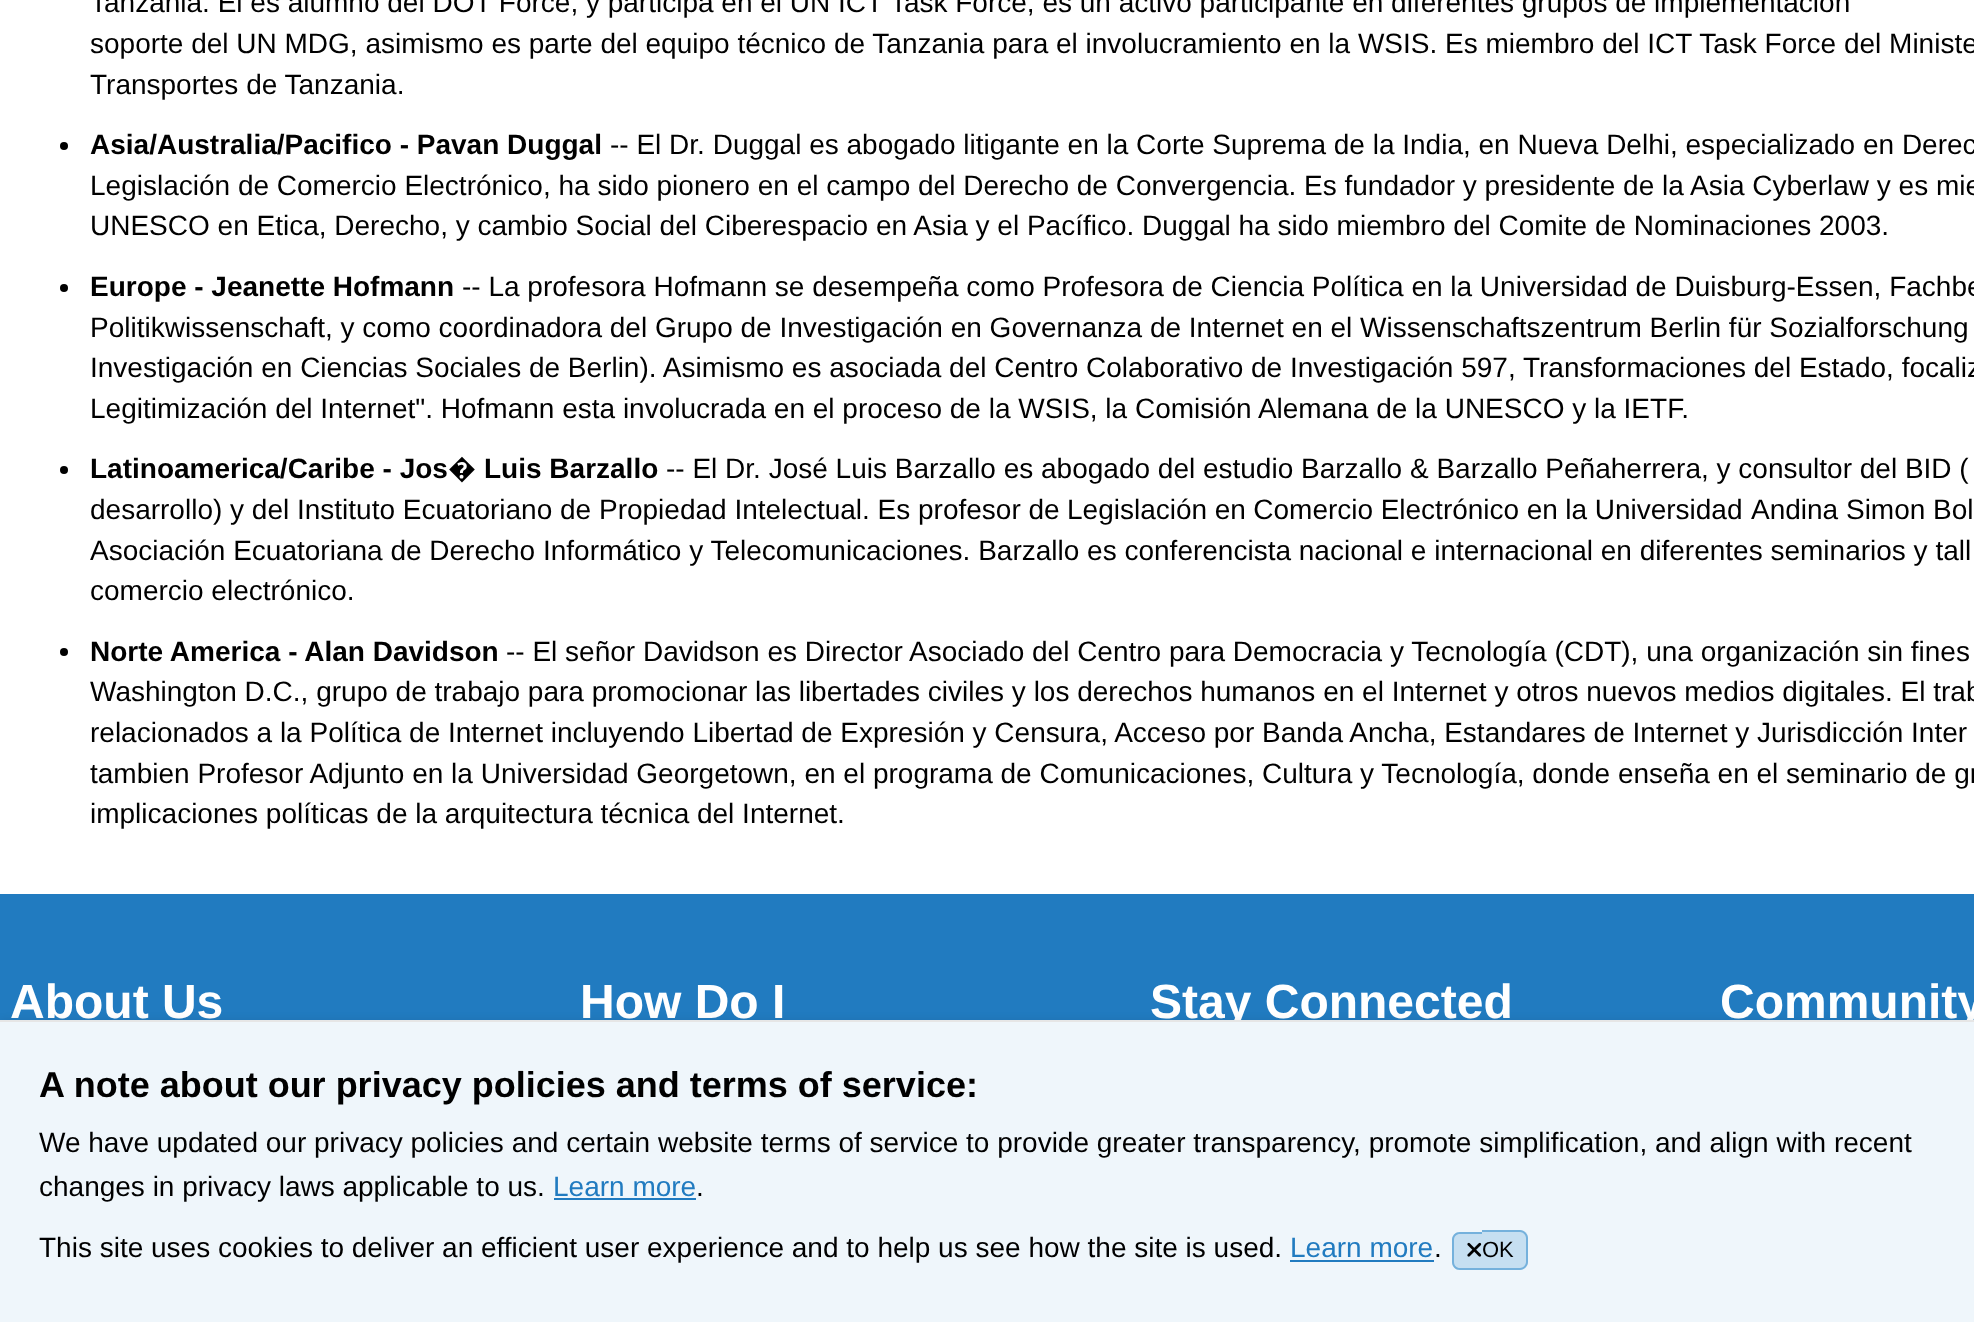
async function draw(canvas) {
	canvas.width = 1974;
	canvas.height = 1322;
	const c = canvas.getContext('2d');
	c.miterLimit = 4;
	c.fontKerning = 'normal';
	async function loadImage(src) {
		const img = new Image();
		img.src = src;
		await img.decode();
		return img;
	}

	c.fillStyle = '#fff';
	c.fillRect(0, 0, 1974, 1322);
	c.font = '28px Liberation Sans';
	c.fillStyle = '#000';
	for (const [text, x, y] of [
		['Tanzania. El es alumno del DOT Force, y participa en el UN ICT Task Force, es un activo participante en diferentes grupos de implementación', 90, 12],
		['soporte del UN MDG, asimismo es parte del equipo técnico de Tanzania para el involucramiento en la WSIS. Es miembro del ICT Task Force del Ministe', 90, 53],
		['Transportes de Tanzania.', 90, 94],
	]) {
		c.fillText(text, x, y);
	}
	c.beginPath();
	c.arc(64, 146, 4, 0, 2 * Math.PI);
	c.fill();
	c.font = 'bold 28px Liberation Sans';
	c.fillText('Asia/Australia/Pacifico - Pavan Duggal', 90, 154);
	c.font = '28px Liberation Sans';
	for (const [text, x, y] of [
		['-- El Dr. Duggal es abogado litigante en la Corte Suprema de la India, en Nueva Delhi, especializado en Derec', 610, 154],
		['Legislación de Comercio Electrónico, ha sido pionero en el campo del Derecho de Convergencia. Es fundador y presidente de la Asia Cyberlaw y es mie', 90, 195],
		['UNESCO en Etica, Derecho, y cambio Social del Ciberespacio en Asia y el Pacífico. Duggal ha sido miembro del Comite de Nominaciones 2003.', 90, 235],
	]) {
		c.fillText(text, x, y);
	}
	c.beginPath();
	c.arc(64, 288, 4, 0, 2 * Math.PI);
	c.fill();
	c.font = 'bold 28px Liberation Sans';
	c.fillText('Europe - Jeanette Hofmann', 90, 296);
	c.font = '28px Liberation Sans';
	for (const [text, x, y] of [
		['-- La profesora Hofmann se desempeña como Profesora de Ciencia Política en la Universidad de Duisburg-Essen, Fachbe', 462, 296],
		['Politikwissenschaft, y como coordinadora del Grupo de Investigación en Governanza de Internet en el Wissenschaftszentrum Berlin für Sozialforschung', 90, 337],
		['Investigación en Ciencias Sociales de Berlin). Asimismo es asociada del Centro Colaborativo de Investigación 597, Transformaciones del Estado, focaliz', 90, 377],
		['Legitimización del Internet". Hofmann esta involucrada en el proceso de la WSIS, la Comisión Alemana de la UNESCO y la IETF.', 90, 418],
	]) {
		c.fillText(text, x, y);
	}
	c.beginPath();
	c.arc(64, 470, 4, 0, 2 * Math.PI);
	c.fill();
	c.font = 'bold 28px Liberation Sans';
	c.fillText('Latinoamerica/Caribe - Jos', 90, 478);
	c.font = '600 28px Noto Sans';
	c.fillText('�', 448, 478);
	c.font = 'bold 28px Liberation Sans';
	c.fillText('Luis Barzallo', 484, 478);
	c.font = '28px Liberation Sans';
	c.fillText('-- El Dr. José Luis Barzallo es abogado del estudio Barzallo & Barzallo Peñaherrera, y consultor del BID (', 666, 478);
	c.fillText('desarrollo) y del Instituto Ecuatoriano de Propiedad Intelectual. Es profesor de', 90, 519);
	c.wordSpacing = '-0.25px';
	c.fillText('Legislación en Comercio Electrónico en la Universidad', 1067, 519);
	c.wordSpacing = '0px';
	for (const [text, x, y] of [
		['Andina Simon Bol', 1751, 519],
		['Asociación Ecuatoriana de Derecho Informático y Telecomunicaciones. Barzallo es conferencista nacional e internacional en diferentes seminarios y tall', 90, 560],
		['comercio electrónico.', 90, 600],
	]) {
		c.fillText(text, x, y);
	}
	c.beginPath();
	c.arc(64, 652, 4, 0, 2 * Math.PI);
	c.fill();
	c.font = 'bold 28px Liberation Sans';
	c.fillText('Norte America - Alan Davidson', 90, 661);
	c.font = '28px Liberation Sans';
	for (const [text, x, y] of [
		['-- El señor Davidson es Director Asociado del Centro para Democracia y Tecnología (CDT), una organización sin fines', 506, 661],
		['Washington D.C., grupo de trabajo para promocionar las libertades civiles y los derechos humanos en el Internet y otros nuevos medios digitales. El trab', 90, 701],
		['relacionados a la Política de Internet incluyendo Libertad de Expresión y Censura, Acceso por Banda Ancha, Estandares de Internet y Jurisdicción Inter', 90, 742],
		['tambien Profesor Adjunto en la Universidad Georgetown, en el programa de Comunicaciones, Cultura y Tecnología, donde enseña en el seminario de gr', 90, 783],
		['implicaciones políticas de la arquitectura técnica del Internet.', 90, 823],
	]) {
		c.fillText(text, x, y);
	}
	c.fillStyle = '#217bc0';
	c.fillRect(0, 894, 1974, 126);
	c.font = 'bold 48px Liberation Sans';
	c.fillStyle = '#fff';
	for (const [text, x, y] of [
		['About Us', 10, 1018],
		['How Do I', 580, 1018],
		['Stay Connected', 1150, 1018],
		['Community', 1720, 1018],
	]) {
		c.fillText(text, x, y);
	}
	c.fillStyle = '#0000000d';
	c.filter = 'blur(3px)';
	c.beginPath();
	c.rect(0, 1018, 1974, 302);
	c.fill();
	c.filter = 'none';
	c.fillStyle = '#eff6fb';
	c.fillRect(0, 1022, 1974, 300);
	c.fillStyle = '#e6e6e6';
	c.fillRect(0, 1020, 1974, 2);
	c.font = 'bold 36px Liberation Sans';
	c.fillStyle = '#000';
	c.fillText('A note about our privacy policies and terms of service:', 39, 1097);
	c.font = '28px Liberation Sans';
	c.fillText('We have updated our privacy policies and certain website terms of service to provide greater transparency, promote simplification, and align with recent', 39, 1152);
	c.fillText('changes in privacy laws applicable to us.', 39, 1196);
	c.fillStyle = '#217bc0';
	c.fillText('Learn more', 553, 1196);
	c.fillRect(554, 1198, 142, 2);
	c.fillStyle = '#000';
	c.fillText('.', 696, 1196);
	c.fillText('This site uses cookies to deliver an efficient user experience and to help us see how the site is used.', 39, 1257);
	c.fillStyle = '#217bc0';
	c.fillText('Learn more', 1290, 1257);
	c.fillRect(1290, 1260, 144, 2);
	c.fillStyle = '#000';
	c.fillText('.', 1434, 1257);
	c.fillStyle = '#c6dff1';
	c.beginPath();
	c.roundRect(1452, 1232, 30, 38, [8, 0, 0, 8]);
	c.fill();
	c.fillStyle = '#75b1dc';
	c.beginPath();
	c.moveTo(1460, 1232);
	c.lineTo(1482, 1232);
	c.lineTo(1482, 1270);
	c.lineTo(1460, 1270);
	c.bezierCurveTo(1455.5, 1270, 1452, 1266.5, 1452, 1262);
	c.lineTo(1452, 1240);
	c.bezierCurveTo(1452, 1235.5, 1455.5, 1232, 1460, 1232);
	c.closePath();
	c.moveTo(1460, 1234);
	c.lineTo(1482, 1234);
	c.lineTo(1482, 1268);
	c.lineTo(1460, 1268);
	c.bezierCurveTo(1456.5, 1268, 1454, 1265.5, 1454, 1262);
	c.lineTo(1454, 1240);
	c.bezierCurveTo(1454, 1236.5, 1456.5, 1234, 1460, 1234);
	c.closePath();
	c.fill('evenodd');
	c.fillStyle = '#c6dff1';
	c.beginPath();
	c.roundRect(1482, 1230, 46, 40, [0, 8, 8, 0]);
	c.fill();
	c.fillStyle = '#75b1dc';
	c.beginPath();
	c.moveTo(1482, 1230);
	c.lineTo(1520, 1230);
	c.bezierCurveTo(1524, 1230, 1528, 1234, 1528, 1238);
	c.lineTo(1528, 1262);
	c.bezierCurveTo(1528, 1266, 1524, 1270, 1520, 1270);
	c.lineTo(1482, 1270);
	c.closePath();
	c.moveTo(1482, 1232);
	c.lineTo(1520, 1232);
	c.bezierCurveTo(1523, 1232, 1526, 1235, 1526, 1238);
	c.lineTo(1526, 1262);
	c.bezierCurveTo(1526, 1265, 1523, 1268, 1520, 1268);
	c.lineTo(1482, 1268);
	c.closePath();
	c.fill('evenodd');
	c.drawImage(await loadImage('img1.png'), 1467, 1242, 15, 15);
	c.font = '22px Liberation Sans';
	c.fillStyle = '#000';
	c.fillText('OK', 1482, 1257);
}

draw(document.querySelector('canvas'));
